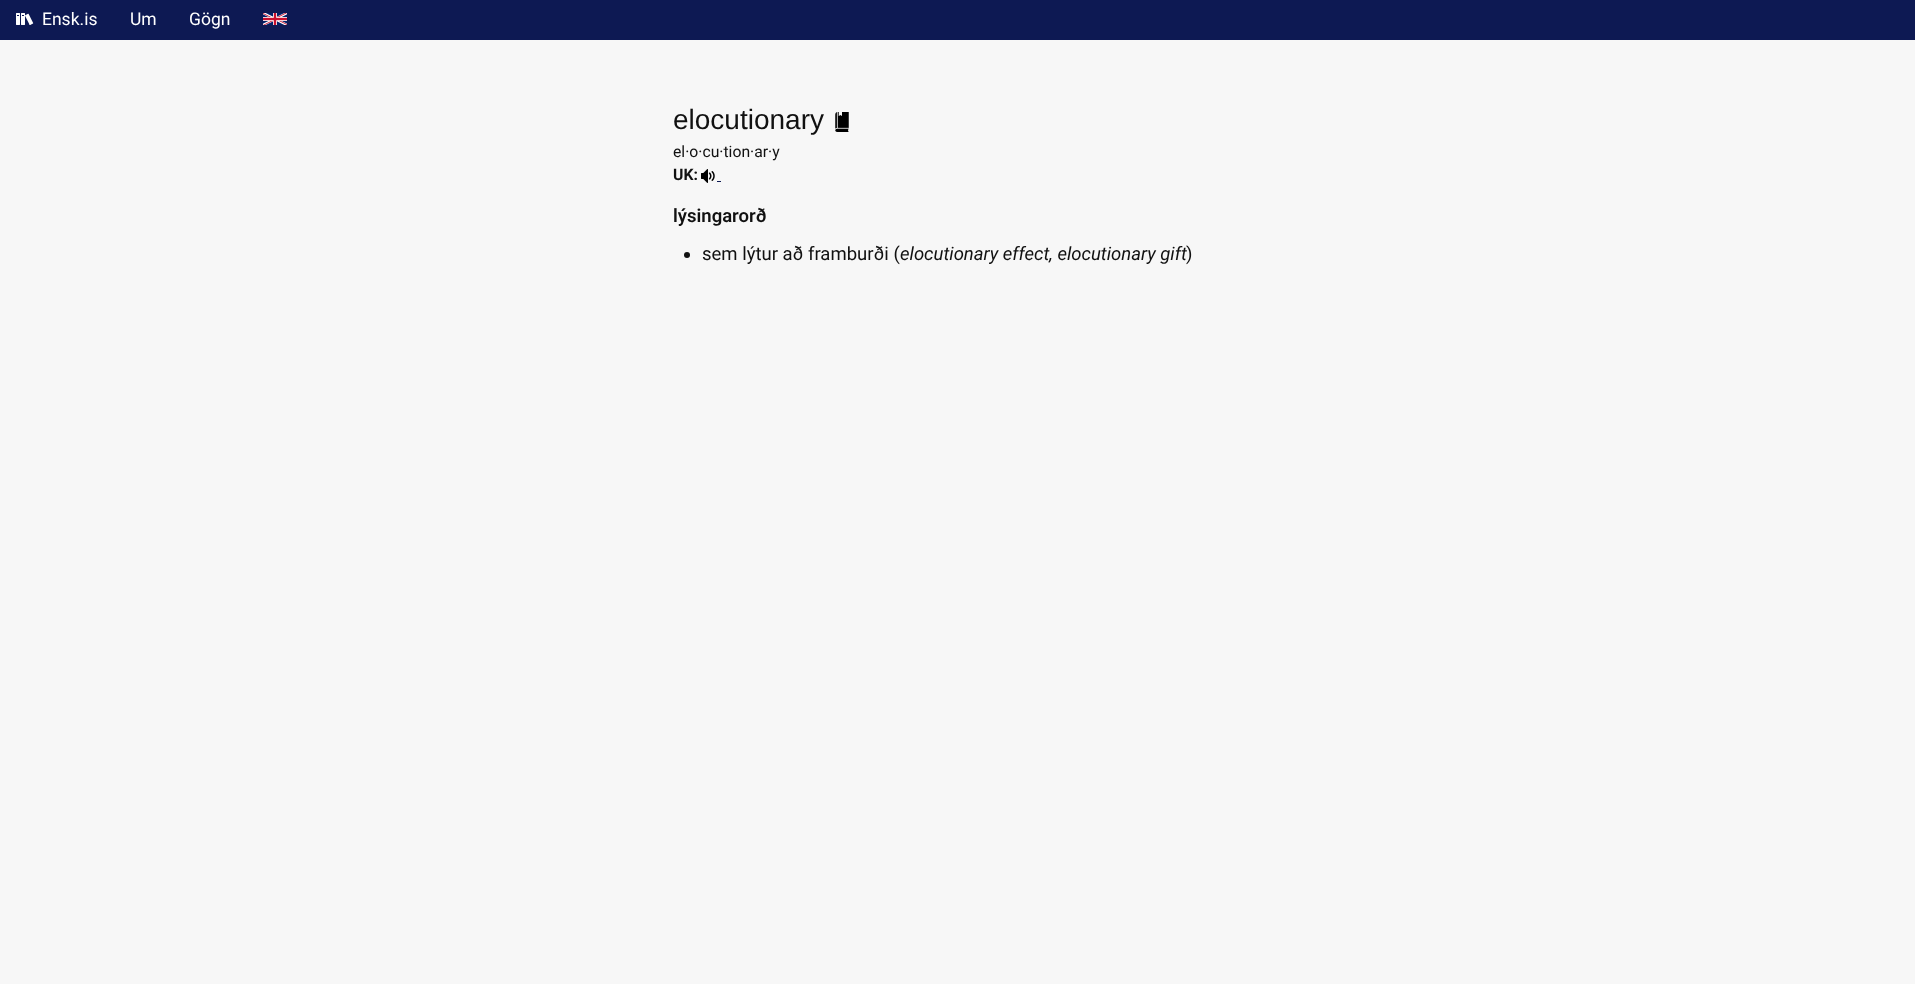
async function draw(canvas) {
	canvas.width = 1915;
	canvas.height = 984;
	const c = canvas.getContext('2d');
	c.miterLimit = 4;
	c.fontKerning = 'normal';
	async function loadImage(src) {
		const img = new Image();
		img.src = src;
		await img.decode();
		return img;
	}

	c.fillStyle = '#f7f7f7';
	c.fillRect(0, 0, 1915, 984);
	c.fillStyle = '#0d1953';
	c.fillRect(0, 0, 1915, 40);
	c.drawImage(await loadImage('img1.png'), 16, 13, 18, 12);
	c.font = '17.5px Roboto';
	c.fillStyle = '#fff';
	for (const [text, x, y] of [
		['Ensk.is', 42, 25],
		['Um', 130, 25],
		['Gögn', 189, 25],
	]) {
		c.fillText(text, x, y);
	}
	c.drawImage(await loadImage('img2.png'), 263, 13, 24, 12);
	c.font = '28px Liberation Sans';
	c.fillStyle = '#111';
	c.fillText('elocutionary', 673, 129);
	c.drawImage(await loadImage('img3.png'), 835, 112, 14, 20);
	c.font = '15.75px Roboto';
	c.fillText('el·o·cu·tion·ar·y', 673, 157);
	c.font = 'bold 15.75px Roboto';
	c.fillText('UK:', 673, 180);
	c.drawImage(await loadImage('img4.png'), 701, 169, 14, 14);
	c.fillStyle = '#0d1953';
	c.fillRect(717, 181, 4, 1);
	c.font = '600 18.5px Roboto';
	c.fillStyle = '#111';
	c.fillText('lýsingarorð', 673, 222);
	c.beginPath();
	c.arc(687, 255, 3, 0, 2 * Math.PI);
	c.fill();
	c.font = '18.5px Roboto';
	c.fillText('sem lýtur að framburði (', 702, 260);
	c.font = 'italic 18.5px Roboto';
	c.fillText('elocutionary effect, elocutionary gift', 900, 260);
	c.font = '18.5px Roboto';
	c.fillText(')', 1186, 260);
}

draw(document.querySelector('canvas'));
